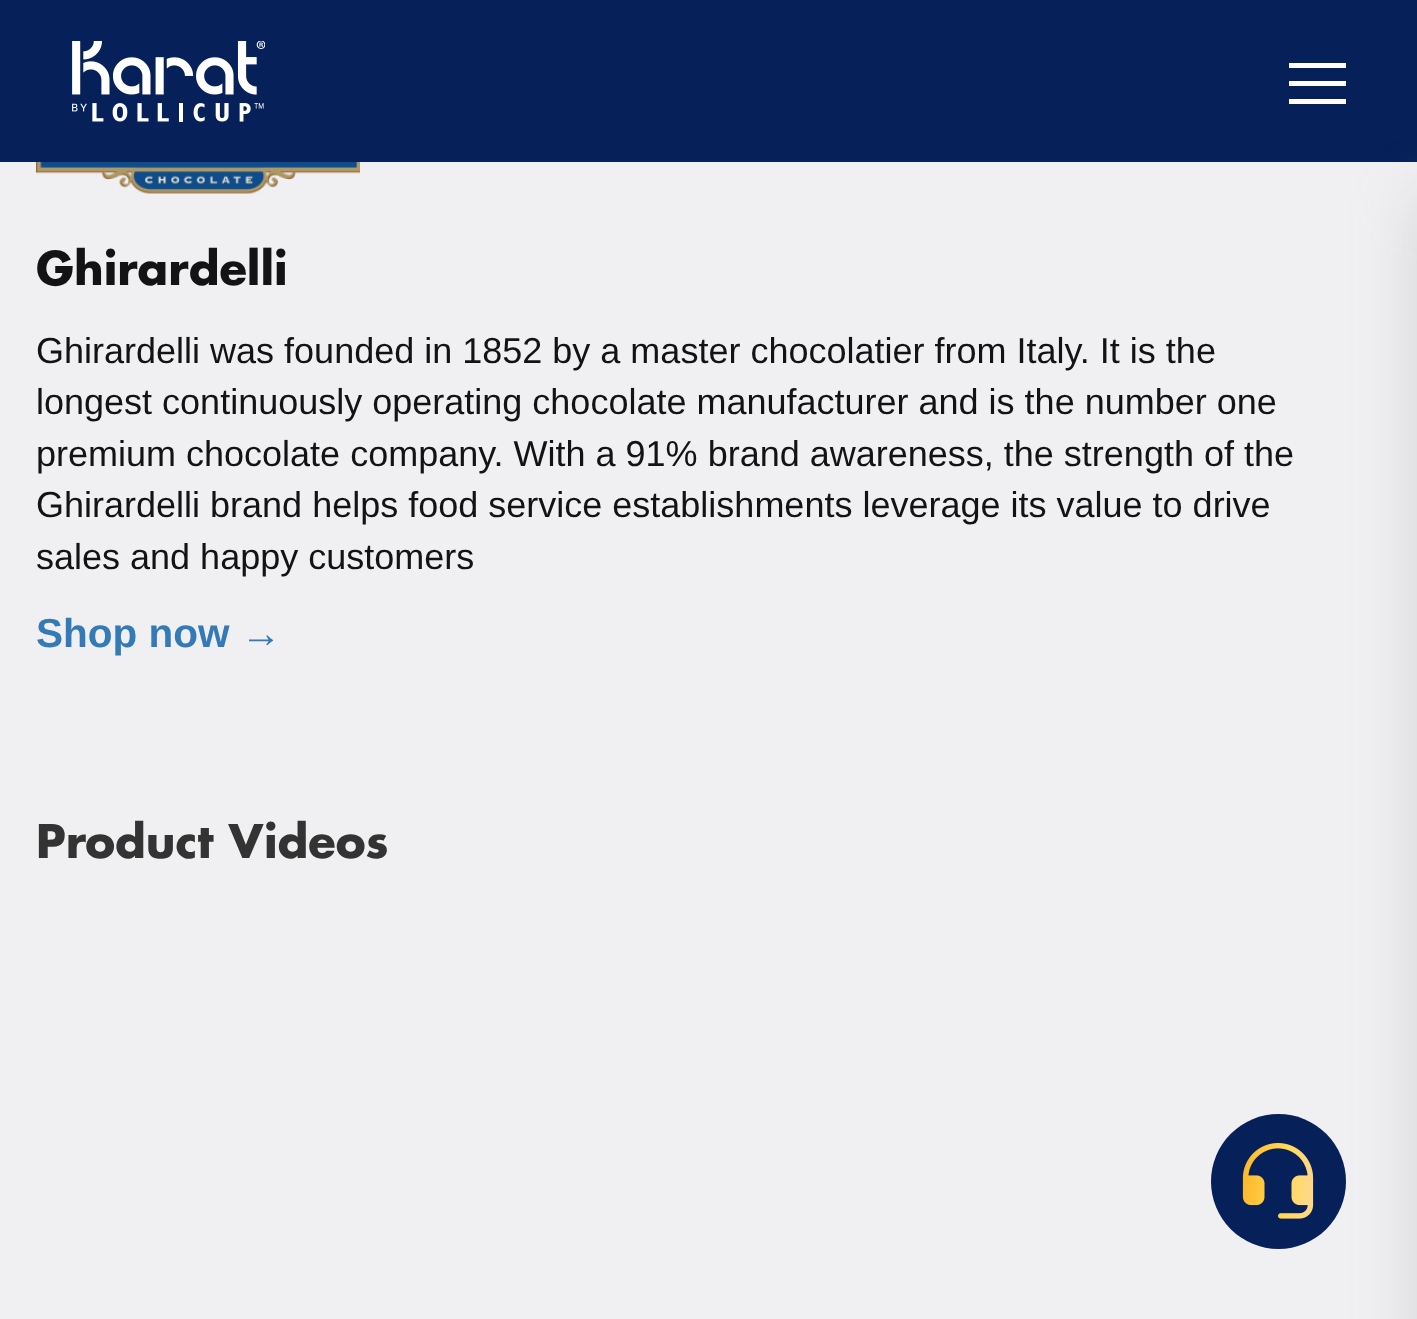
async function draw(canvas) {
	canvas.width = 1417;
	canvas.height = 1319;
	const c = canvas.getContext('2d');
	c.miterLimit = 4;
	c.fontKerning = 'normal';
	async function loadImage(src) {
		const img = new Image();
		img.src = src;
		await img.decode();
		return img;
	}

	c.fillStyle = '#f0f0f2';
	c.fillRect(0, 0, 1417, 1319);
	c.fillStyle = '#062059';
	c.fillRect(0, 0, 1417, 162);
	c.drawImage(await loadImage('img1.png'), 72, 41, 193, 81);
	for (const [x, y, w, h, color] of [
		[1289, 81, 57, 5, '#fff'],
		[1289, 63, 57, 5, '#fff'],
		[1289, 99, 57, 5, '#fff'],
	]) {
		c.fillStyle = color;
		c.fillRect(x, y, w, h);
	}
	c.fillStyle = '#062059';
	c.beginPath();
	c.arc(1278.5, 1181.5, 67.5, 0, 2 * Math.PI);
	c.fill();
	c.fillStyle = '#a7a5a561';
	c.filter = 'blur(30.5px)';
	c.beginPath();
	c.rect(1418, 196, 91, 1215);
	c.fill();
	c.filter = 'none';
	c.drawImage(await loadImage('img2.png'), 36, 162, 324, 32);
	c.font = 'bold 45px Futura';
	c.fillStyle = '#131316';
	c.fillText('Ghirardelli', 36, 285);
	c.font = '36px Liberation Sans';
	for (const [text, x, y] of [
		['Ghirardelli was founded in 1852 by a master chocolatier from Italy. It is the', 36, 363],
		['longest continuously operating chocolate manufacturer and is the number one', 36, 414],
		['premium chocolate company. With a 91% brand awareness, the strength of the', 36, 466],
		['Ghirardelli brand helps food service establishments leverage its value to drive', 36, 517],
		['sales and happy customers', 36, 569],
	]) {
		c.fillText(text, x, y);
	}
	c.font = 'bold 40.5px Liberation Sans';
	c.fillStyle = '#337ab7';
	c.fillText('Shop now →', 36, 647);
	c.font = 'bold 45px Futura';
	c.fillStyle = '#333';
	c.fillText('Product Videos', 36, 858);
	c.drawImage(await loadImage('img3.png'), 1242, 1143, 72, 76);
}

draw(document.querySelector('canvas'));
